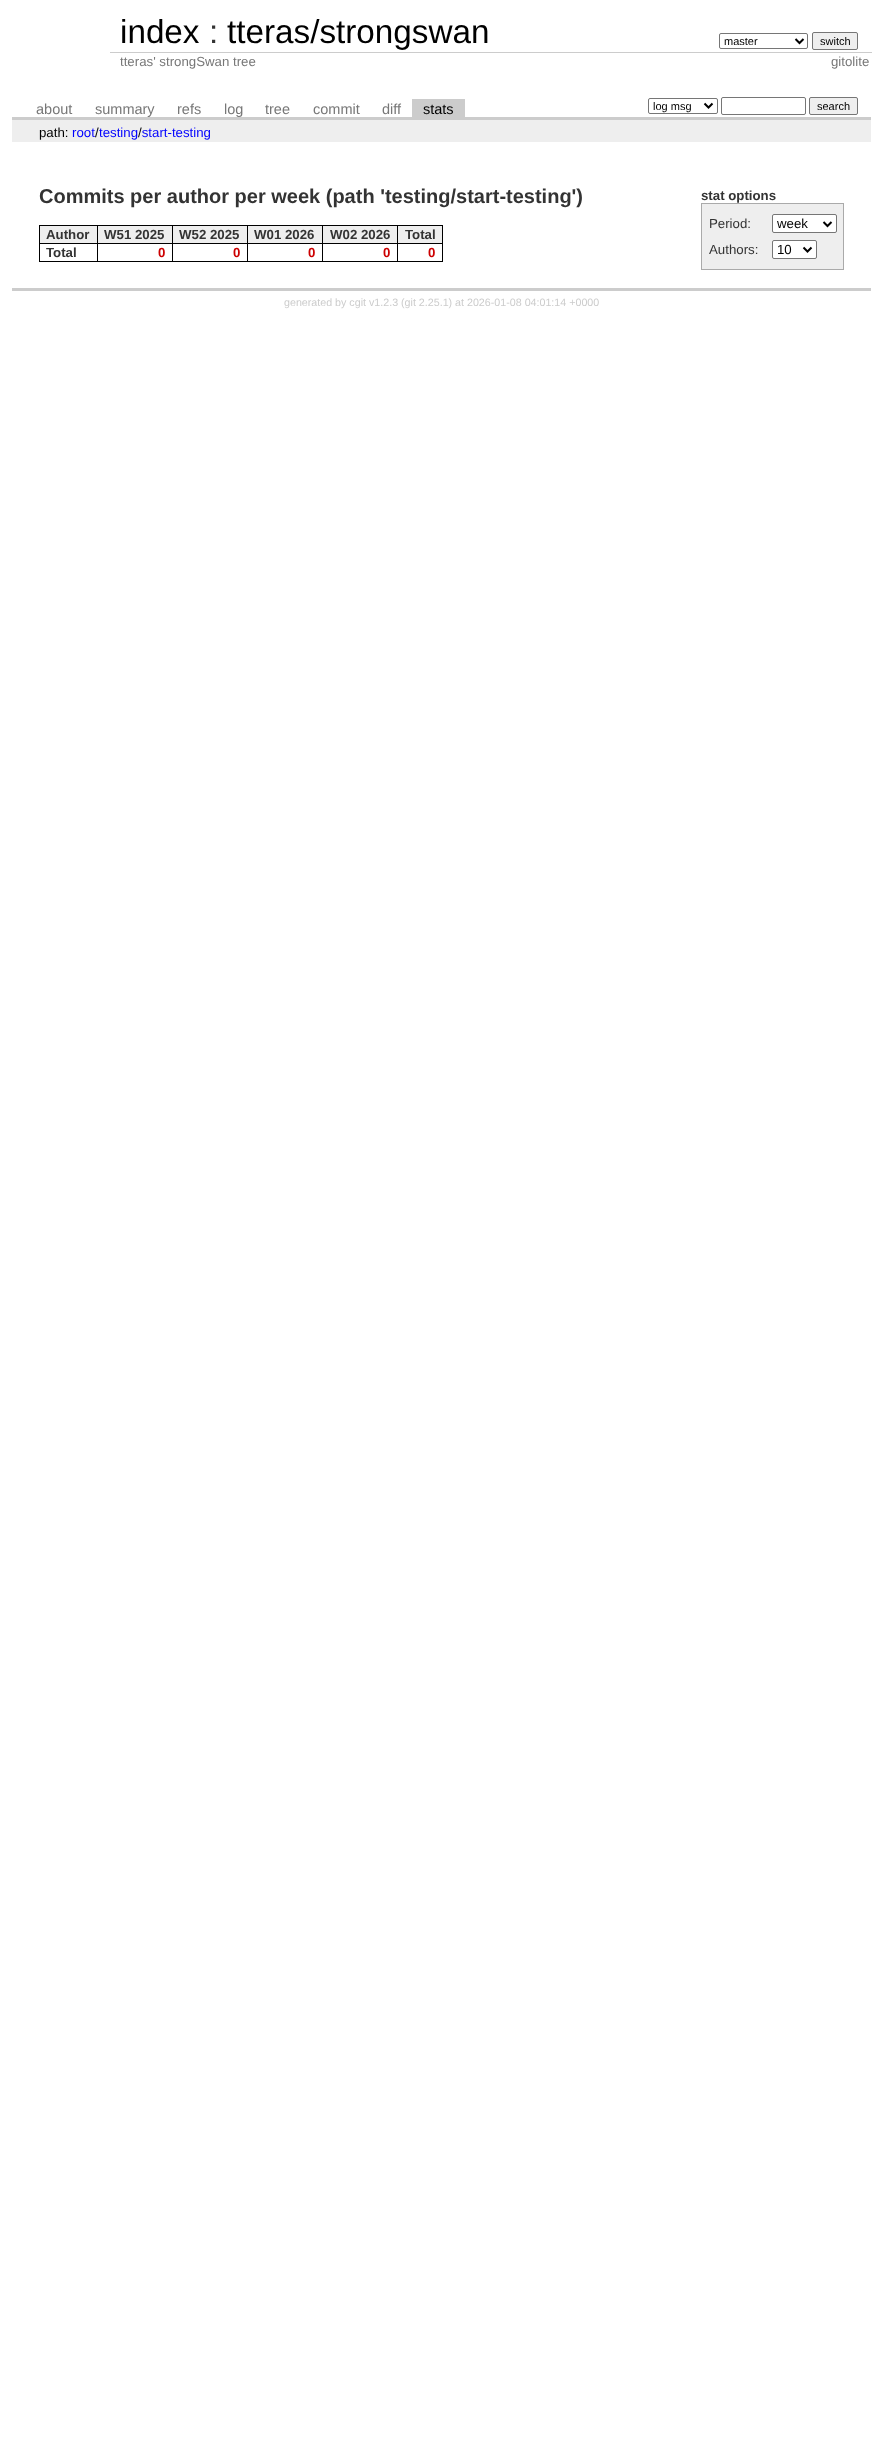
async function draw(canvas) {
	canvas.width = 883;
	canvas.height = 2440;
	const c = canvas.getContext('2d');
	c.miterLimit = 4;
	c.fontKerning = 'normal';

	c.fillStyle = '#fff';
	c.fillRect(0, 0, 883, 2440);
	c.font = '33.25px Liberation Sans';
	c.fillStyle = '#000';
	c.fillText('index', 120, 43);
	c.fillStyle = '#333';
	c.fillText(':', 209, 43);
	c.fillStyle = '#000';
	c.fillText('tteras/strongswan', 227, 43);
	c.beginPath();
	c.roundRect(719.5, 33.5, 88, 15, 1.5);
	c.strokeStyle = '#767676';
	c.stroke();
	c.beginPath();
	c.moveTo(795.5, 39);
	c.lineTo(799.5, 43);
	c.lineTo(803.5, 39);
	c.strokeStyle = '#000';
	c.lineWidth = 2;
	c.stroke();
	c.font = '11px Liberation Sans';
	c.fillText('master', 724, 45);
	c.fillStyle = '#efefef';
	c.beginPath();
	c.roundRect(812.5, 32.5, 45, 17, 1.5);
	c.fill();
	c.strokeStyle = '#767676';
	c.lineWidth = 1;
	c.stroke();
	c.fillStyle = '#000';
	c.fillText('switch', 820, 45);
	c.font = '13.25px Liberation Sans';
	c.fillStyle = '#777';
	c.fillText('tteras\' strongSwan tree', 120, 66);
	c.fillStyle = '#ccc';
	c.fillRect(110, 52, 762, 1);
	c.fillStyle = '#777';
	c.fillText('gitolite', 831, 66);
	c.fillStyle = '#ccc';
	c.fillRect(12, 117, 859, 3);
	c.font = '14.5px Liberation Sans';
	c.fillStyle = '#777';
	for (const [text, x, y] of [
		['about', 36, 114],
		['summary', 95, 114],
		['refs', 177, 114],
		['log', 224, 114],
		['tree', 265, 114],
		['commit', 313, 114],
		['diff', 382, 114],
	]) {
		c.fillText(text, x, y);
	}
	c.fillStyle = '#ccc';
	c.fillRect(412, 99, 53, 18);
	c.fillStyle = '#000';
	c.fillText('stats', 423, 114);
	c.beginPath();
	c.roundRect(648.5, 98.5, 69, 15, 1.5);
	c.stroke();
	c.beginPath();
	c.moveTo(704.5, 103.5);
	c.lineTo(708.5, 107.5);
	c.lineTo(712.5, 103.5);
	c.strokeStyle = '#000';
	c.lineWidth = 2;
	c.stroke();
	c.font = '11px Liberation Sans';
	c.fillText('log msg', 653, 110);
	c.beginPath();
	c.roundRect(721.5, 97.5, 84, 17, 1.5);
	c.strokeStyle = '#767676';
	c.lineWidth = 1;
	c.stroke();
	c.fillStyle = '#efefef';
	c.beginPath();
	c.roundRect(809.5, 97.5, 48, 17, 1.5);
	c.fill();
	c.stroke();
	c.fillStyle = '#000';
	c.fillText('search', 817, 110);
	c.fillStyle = '#eee';
	c.fillRect(12, 120, 859, 22);
	c.font = '13.25px Liberation Sans';
	c.fillStyle = '#000';
	c.fillText('path:', 39, 137);
	c.fillText('/', 95, 137);
	c.fillStyle = '#00f';
	c.fillText('testing start-testing', 99, 137);
	c.fillText('root', 72, 137);
	c.fillStyle = '#000';
	c.fillText('/', 138, 137);
	c.fillStyle = '#ccc';
	c.fillRect(12, 288, 859, 3);
	c.font = 'bold 20px Liberation Sans';
	c.fillStyle = '#333';
	c.fillText('Commits per author per week (path \'testing/start-testing\')', 39, 203);
	c.font = 'bold 13.25px Liberation Sans';
	c.fillText('stat options', 701, 200);
	for (const [x, y, w, h, color] of [
		[702, 204, 141, 65, '#eee'],
		[701, 203, 143, 1, '#aaa'],
		[843, 203, 1, 67, '#aaa'],
		[701, 269, 143, 1, '#aaa'],
		[701, 203, 1, 67, '#aaa'],
	]) {
		c.fillStyle = color;
		c.fillRect(x, y, w, h);
	}
	c.font = '13.25px Liberation Sans';
	c.fillStyle = '#333';
	c.fillText('Period:', 709, 228);
	c.fillStyle = '#fff';
	c.beginPath();
	c.roundRect(772.5, 214.5, 64, 18, 1.5);
	c.fill();
	c.stroke();
	c.beginPath();
	c.moveTo(823.5, 222);
	c.lineTo(827.5, 226);
	c.lineTo(831.5, 222);
	c.strokeStyle = '#000';
	c.lineWidth = 2;
	c.stroke();
	c.fillStyle = '#000';
	c.fillText('week', 777, 228);
	c.fillStyle = '#333';
	c.fillText('Authors:', 709, 254);
	c.fillStyle = '#fff';
	c.beginPath();
	c.roundRect(772.5, 240.5, 44, 18, 1.5);
	c.fill();
	c.strokeStyle = '#767676';
	c.lineWidth = 1;
	c.stroke();
	c.beginPath();
	c.moveTo(803.5, 247.5);
	c.lineTo(807.5, 251.5);
	c.lineTo(811.5, 247.5);
	c.strokeStyle = '#000';
	c.lineWidth = 2;
	c.stroke();
	c.fillStyle = '#000';
	c.fillText('10', 777, 254);
	for (const [x, y, w, h, color] of [
		[39, 225, 404, 1, '#000'],
		[442, 225, 1, 37, '#000'],
		[39, 261, 404, 1, '#000'],
		[39, 225, 1, 37, '#000'],
		[40, 226, 57, 17, '#eee'],
	]) {
		c.fillStyle = color;
		c.fillRect(x, y, w, h);
	}
	c.font = 'bold 13.25px Liberation Sans';
	c.fillStyle = '#333';
	c.fillText('Author', 46, 239);
	for (const [x, y, w, h, color] of [
		[98, 226, 74, 17, '#eee'],
		[397, 243, 46, 1, '#000'],
		[397, 243, 1, 19, '#000'],
		[322, 243, 76, 1, '#000'],
		[322, 243, 1, 19, '#000'],
		[247, 243, 76, 1, '#000'],
		[247, 243, 1, 19, '#000'],
		[172, 243, 76, 1, '#000'],
		[172, 243, 1, 19, '#000'],
		[97, 243, 76, 1, '#000'],
		[97, 243, 1, 19, '#000'],
		[39, 243, 59, 1, '#000'],
		[97, 225, 1, 19, '#000'],
	]) {
		c.fillStyle = color;
		c.fillRect(x, y, w, h);
	}
	c.fillStyle = '#333';
	c.fillText('W51 2025', 104, 239);
	c.fillStyle = '#eee';
	c.fillRect(173, 226, 74, 17);
	c.fillStyle = '#000';
	c.fillRect(172, 225, 1, 19);
	c.fillStyle = '#333';
	c.fillText('W52 2025', 179, 239);
	c.fillStyle = '#eee';
	c.fillRect(248, 226, 74, 17);
	c.fillStyle = '#000';
	c.fillRect(247, 225, 1, 19);
	c.fillStyle = '#333';
	c.fillText('W01 2026', 254, 239);
	c.fillStyle = '#eee';
	c.fillRect(323, 226, 74, 17);
	c.fillStyle = '#000';
	c.fillRect(322, 225, 1, 19);
	c.fillStyle = '#333';
	c.fillText('W02 2026', 330, 239);
	c.fillStyle = '#eee';
	c.fillRect(398, 226, 44, 17);
	c.fillStyle = '#000';
	c.fillRect(397, 225, 1, 19);
	c.fillStyle = '#333';
	c.fillText('Total', 405, 239);
	c.fillText('Total', 46, 257);
	c.fillStyle = '#c00';
	for (const [text, x, y] of [
		['0', 158, 257],
		['0', 233, 257],
		['0', 308, 257],
		['0', 383, 257],
		['0', 428, 257],
	]) {
		c.fillText(text, x, y);
	}
	c.font = '10.7px Liberation Sans';
	c.fillStyle = '#ccc';
	c.fillText('generated by cgit v1.2.3 (git 2.25.1) at 2026-01-08 04:01:14 +0000', 284, 306);
}

draw(document.querySelector('canvas'));
